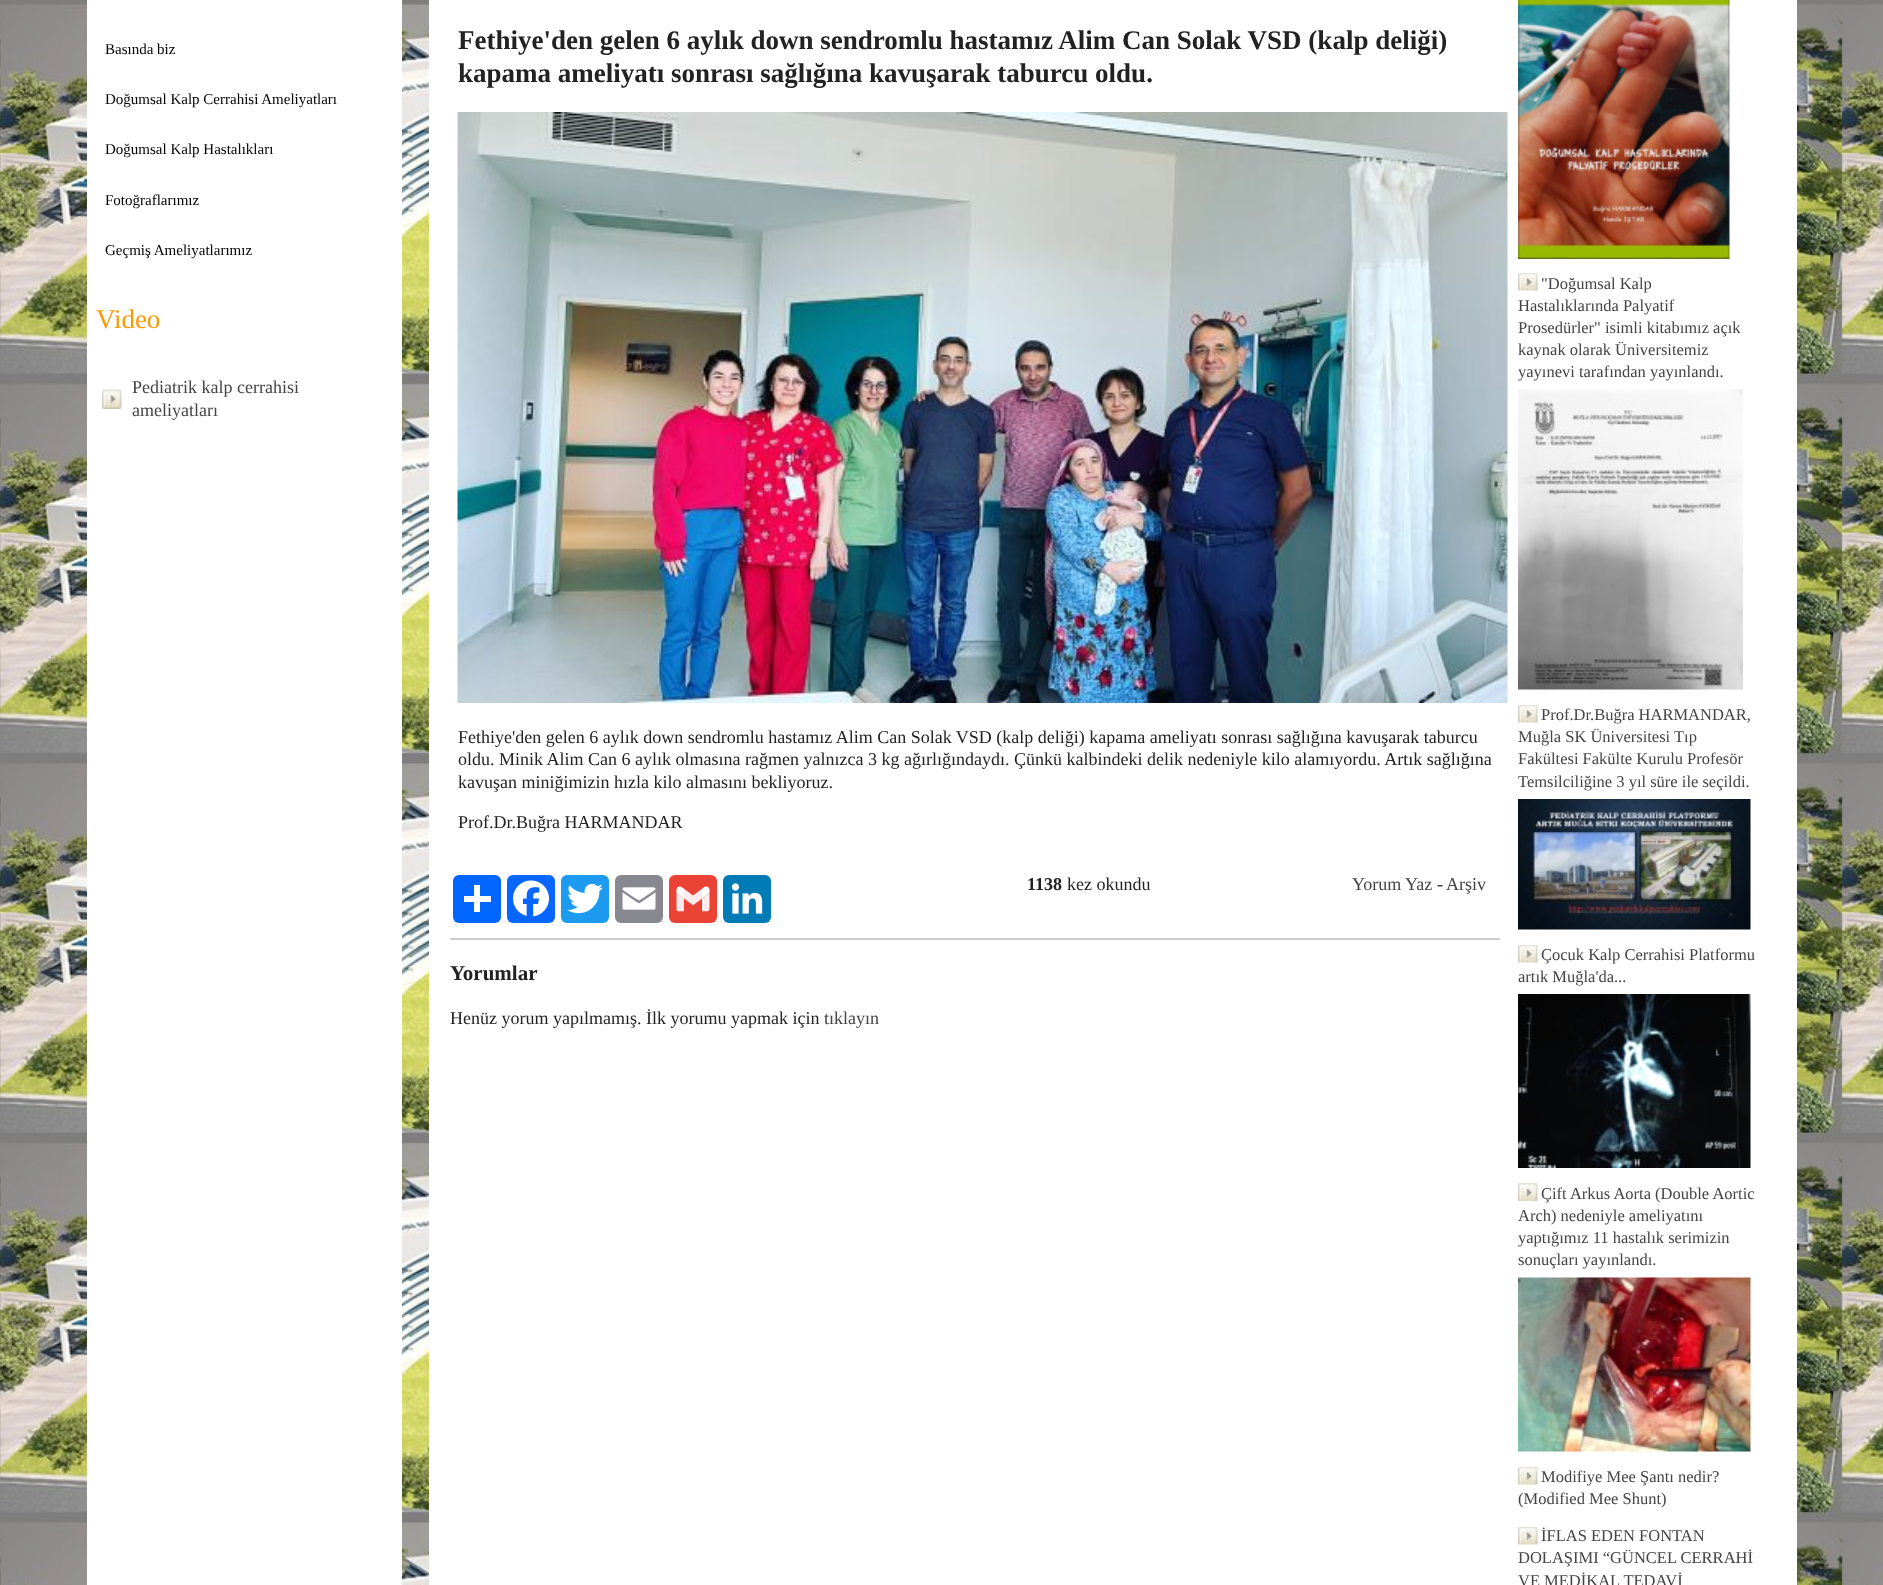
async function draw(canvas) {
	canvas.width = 1883;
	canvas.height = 1585;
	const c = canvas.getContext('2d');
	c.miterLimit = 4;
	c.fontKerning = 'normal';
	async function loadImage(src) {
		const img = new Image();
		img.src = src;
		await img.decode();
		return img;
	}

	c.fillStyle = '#fff';
	c.fillRect(0, 0, 1883, 1585);
	c.drawImage(await loadImage('img1.png'), 0, 0, 1883, 1585);
	c.fillRect(87, 0, 315, 1585);
	c.font = '15px Liberation Serif';
	c.fillStyle = '#000';
	for (const [text, x, y] of [
		['Basında biz', 105, 54],
		['Doğumsal Kalp Cerrahisi Ameliyatları', 105, 104],
		['Doğumsal Kalp Hastalıkları', 105, 154],
		['Fotoğraflarımız', 105, 205],
		['Geçmiş Ameliyatlarımız', 105, 255],
	]) {
		c.fillText(text, x, y);
	}
	c.font = '27px Liberation Serif';
	c.fillStyle = '#ff9800';
	c.fillText('Video', 96, 328);
	c.drawImage(await loadImage('img2.png'), 102, 389, 20, 20);
	c.font = '18px Liberation Serif';
	c.fillStyle = '#444';
	c.fillText('Pediatrik kalp cerrahisi', 132, 393);
	c.fillText('ameliyatları', 132, 416);
	c.fillStyle = '#fff';
	c.fillRect(429, 0, 1368, 1585);
	c.font = 'bold 27px Liberation Serif';
	c.fillStyle = '#222';
	c.fillText('Fethiye\'den gelen 6 aylık down sendromlu hastamız Alim Can Solak VSD (kalp deliği)', 458, 49);
	c.fillText('kapama ameliyatı sonrası sağlığına kavuşarak taburcu oldu.', 458, 82);
	c.drawImage(await loadImage('img3.png'), 457, 112, 1051, 591);
	c.font = '18px Liberation Serif';
	for (const [text, x, y] of [
		['Fethiye\'den gelen 6 aylık down sendromlu hastamız Alim Can Solak VSD (kalp deliği) kapama ameliyatı sonrası sağlığına kavuşarak taburcu', 458, 743],
		['oldu. Minik Alim Can 6 aylık olmasına rağmen yalnızca 3 kg ağırlığındaydı. Çünkü kalbindeki delik nedeniyle kilo alamıyordu. Artık sağlığına', 458, 765],
		['kavuşan miniğimizin hızla kilo almasını bekliyoruz.', 458, 788],
		['Prof.Dr.Buğra HARMANDAR', 458, 828],
	]) {
		c.fillText(text, x, y);
	}
	c.fillStyle = '#0166ff';
	c.beginPath();
	c.roundRect(453, 875, 48, 48, 6);
	c.fill();
	c.fillStyle = '#fff';
	c.fillRect(474, 885, 6, 27);
	c.fillRect(464, 896, 27, 6);
	c.fillStyle = '#0866ff';
	c.beginPath();
	c.roundRect(507, 875, 48, 48, 6);
	c.fill();
	c.drawImage(await loadImage('img4.png'), 513, 880, 36, 37);
	c.fillStyle = '#1d9bf0';
	c.beginPath();
	c.roundRect(561, 875, 48, 48, 6);
	c.fill();
	c.drawImage(await loadImage('img5.png'), 567, 883, 36, 31);
	c.fillStyle = '#888990';
	c.beginPath();
	c.roundRect(615, 875, 48, 48, 6);
	c.fill();
	c.drawImage(await loadImage('img6.png'), 622, 887, 34, 23);
	c.fillStyle = '#ea4335';
	c.beginPath();
	c.roundRect(669, 875, 48, 48, 6);
	c.fill();
	c.drawImage(await loadImage('img7.png'), 676, 886, 34, 26);
	c.fillStyle = '#007bb5';
	c.beginPath();
	c.roundRect(723, 875, 48, 48, 6);
	c.fill();
	c.drawImage(await loadImage('img8.png'), 731, 883, 32, 31);
	c.font = 'bold 18px Liberation Serif';
	c.fillStyle = '#222';
	c.fillText('1138', 1027, 890);
	c.font = '18px Liberation Serif';
	c.fillText('kez okundu', 1067, 890);
	c.fillStyle = '#444';
	c.fillText('Yorum Yaz', 1352, 890);
	c.fillStyle = '#222';
	c.fillText('-', 1437, 890);
	c.fillStyle = '#444';
	c.fillText('Arşiv', 1446, 890);
	c.fillStyle = '#ccc';
	c.fillRect(450, 938, 1050, 2);
	c.font = 'bold 21px Liberation Serif';
	c.fillStyle = '#222';
	c.fillText('Yorumlar', 450, 980);
	c.font = '18px Liberation Serif';
	c.fillText('Henüz yorum yapılmamış. İlk yorumu yapmak için', 450, 1024);
	c.fillStyle = '#444';
	c.fillText('tıklayın', 824, 1024);
	c.drawImage(await loadImage('img9.png'), 1518, 0, 212, 259);
	c.drawImage(await loadImage('img10.png'), 1518, 273, 20, 18);
	c.font = '16.5px Liberation Serif';
	for (const [text, x, y] of [
		['"Doğumsal Kalp', 1541, 289],
		['Hastalıklarında Palyatif', 1518, 311],
		['Prosedürler" isimli kitabımız açık', 1518, 333],
		['kaynak olarak Üniversitemiz', 1518, 355],
		['yayınevi tarafından yayınlandı.', 1518, 377],
	]) {
		c.fillText(text, x, y);
	}
	c.drawImage(await loadImage('img11.png'), 1518, 389, 225, 301);
	c.drawImage(await loadImage('img10.png'), 1518, 705, 20, 18);
	for (const [text, x, y] of [
		['Prof.Dr.Buğra HARMANDAR,', 1541, 720],
		['Muğla SK Üniversitesi Tıp', 1518, 742],
		['Fakültesi Fakülte Kurulu Profesör', 1518, 764],
		['Temsilciliğine 3 yıl süre ile seçildi.', 1518, 787],
	]) {
		c.fillText(text, x, y);
	}
	c.drawImage(await loadImage('img12.png'), 1518, 799, 233, 131);
	c.drawImage(await loadImage('img10.png'), 1518, 945, 20, 18);
	c.fillText('Çocuk Kalp Cerrahisi Platformu', 1541, 960);
	c.fillText('artık Muğla\'da...', 1518, 982);
	c.drawImage(await loadImage('img13.png'), 1518, 994, 233, 174);
	c.drawImage(await loadImage('img14.png'), 1518, 1183, 20, 18);
	for (const [text, x, y] of [
		['Çift Arkus Aorta (Double Aortic', 1541, 1199],
		['Arch) nedeniyle ameliyatını', 1518, 1221],
		['yaptığımız 11 hastalık serimizin', 1518, 1243],
		['sonuçları yayınlandı.', 1518, 1265],
	]) {
		c.fillText(text, x, y);
	}
	c.drawImage(await loadImage('img15.png'), 1518, 1277, 233, 175);
	c.drawImage(await loadImage('img10.png'), 1518, 1467, 20, 18);
	c.fillText('Modifiye Mee Şantı nedir?', 1541, 1482);
	c.fillText('(Modified Mee Shunt)', 1518, 1504);
	c.drawImage(await loadImage('img10.png'), 1518, 1527, 20, 18);
	for (const [text, x, y] of [
		['İFLAS EDEN FONTAN', 1541, 1541],
		['DOLAŞIMI “GÜNCEL CERRAHİ', 1518, 1563],
		['VE MEDİKAL TEDAVİ', 1518, 1586],
	]) {
		c.fillText(text, x, y);
	}
}

draw(document.querySelector('canvas'));
